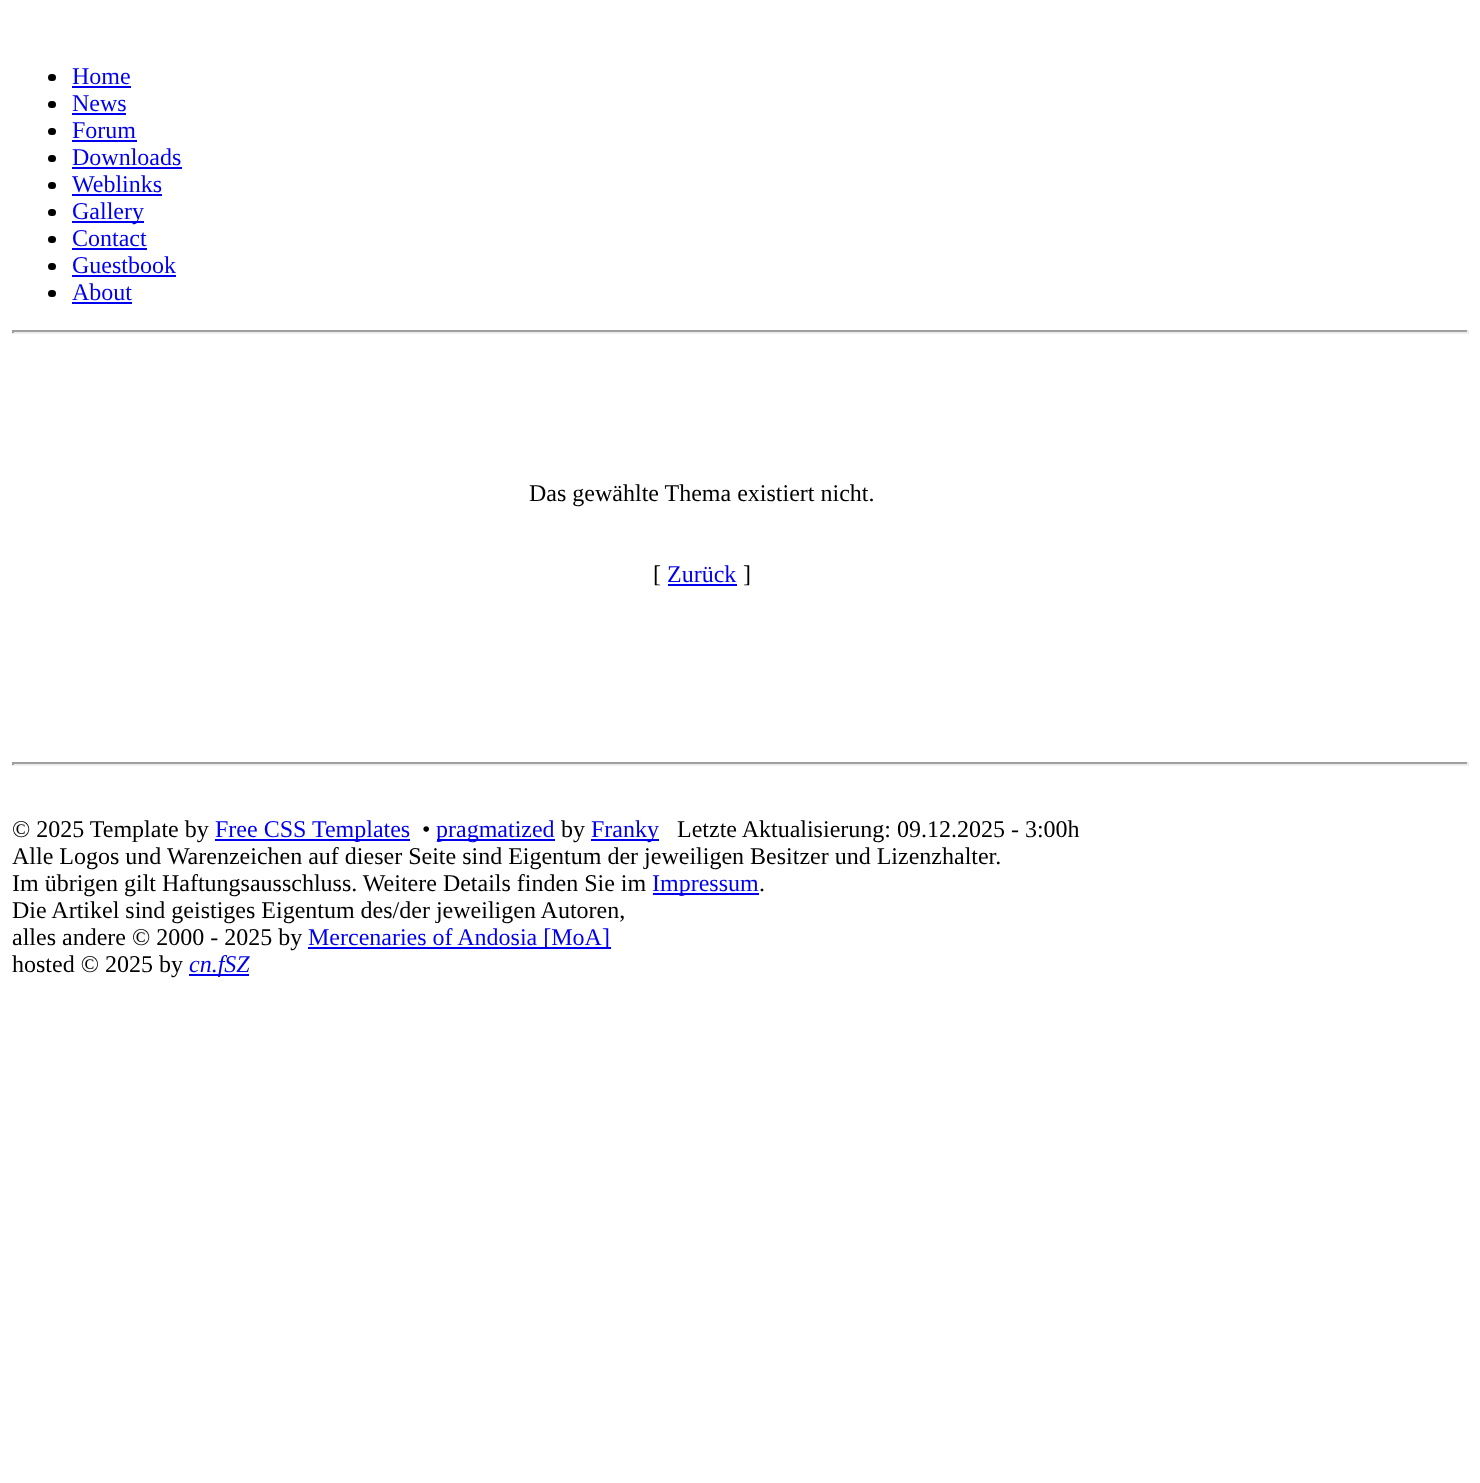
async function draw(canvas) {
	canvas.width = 1480;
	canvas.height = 1483;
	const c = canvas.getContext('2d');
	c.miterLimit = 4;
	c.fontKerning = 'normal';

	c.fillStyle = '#fff';
	c.fillRect(0, 0, 1480, 1483);
	c.fillStyle = '#000';
	c.beginPath();
	c.roundRect(48, 74, 8, 7, 3.5);
	c.fill();
	c.font = '24px Liberation Serif';
	c.fillStyle = '#00e';
	c.fillText('Home', 72, 84);
	c.fillRect(72, 86, 59, 2);
	c.fillStyle = '#000';
	c.beginPath();
	c.roundRect(48, 101, 8, 7, 3.5);
	c.fill();
	c.fillStyle = '#00e';
	c.fillText('News', 72, 111);
	c.fillRect(72, 113, 54, 2);
	c.fillStyle = '#000';
	c.beginPath();
	c.roundRect(48, 128, 8, 7, 3.5);
	c.fill();
	c.fillStyle = '#00e';
	c.fillText('Forum', 72, 138);
	c.fillRect(72, 140, 65, 2);
	c.fillStyle = '#000';
	c.beginPath();
	c.roundRect(48, 155, 8, 7, 3.5);
	c.fill();
	c.fillStyle = '#00e';
	c.fillText('Downloads', 72, 165);
	c.fillRect(72, 167, 110, 2);
	c.fillStyle = '#000';
	c.beginPath();
	c.roundRect(48, 182, 8, 7, 3.5);
	c.fill();
	c.fillStyle = '#00e';
	c.fillText('Weblinks', 72, 192);
	c.fillRect(72, 194, 90, 2);
	c.fillStyle = '#000';
	c.beginPath();
	c.roundRect(48, 209, 8, 7, 3.5);
	c.fill();
	c.fillStyle = '#00e';
	c.fillRect(72, 221, 72, 2);
	c.fillText('Gallery', 72, 219);
	c.fillStyle = '#000';
	c.beginPath();
	c.roundRect(48, 236, 8, 7, 3.5);
	c.fill();
	c.fillStyle = '#00e';
	c.fillText('Contact', 72, 246);
	c.fillRect(72, 248, 75, 2);
	c.fillStyle = '#000';
	c.beginPath();
	c.roundRect(48, 263, 8, 7, 3.5);
	c.fill();
	c.fillStyle = '#00e';
	c.fillText('Guestbook', 72, 273);
	c.fillRect(72, 275, 104, 2);
	c.fillStyle = '#000';
	c.beginPath();
	c.roundRect(48, 290, 8, 7, 3.5);
	c.fill();
	c.fillStyle = '#00e';
	c.fillText('About', 72, 300);
	for (const [x, y, w, h, color] of [
		[72, 302, 60, 2, '#00e'],
		[12, 330, 1457, 2, '#9f9f9f'],
		[1467, 330, 2, 3, '#eee'],
		[12, 332, 1457, 2, '#eee'],
		[12, 330, 2, 3, '#9f9f9f'],
	]) {
		c.fillStyle = color;
		c.fillRect(x, y, w, h);
	}
	c.fillStyle = '#000';
	c.fillText('Das gewählte Thema existiert nicht.', 529, 501);
	c.fillText('[', 653, 582);
	c.fillStyle = '#00e';
	c.fillText('Zurück', 667, 582);
	c.fillRect(668, 584, 69, 2);
	c.fillStyle = '#000';
	c.fillText(']', 743, 582);
	for (const [x, y, w, h, color] of [
		[12, 762, 1457, 2, '#9f9f9f'],
		[1467, 762, 2, 3, '#eee'],
		[12, 764, 1457, 2, '#eee'],
		[12, 762, 2, 3, '#9f9f9f'],
	]) {
		c.fillStyle = color;
		c.fillRect(x, y, w, h);
	}
	c.fillStyle = '#000';
	c.fillText('© 2025 Template by', 12, 837);
	c.fillStyle = '#00e';
	c.fillRect(215, 839, 195, 2);
	c.fillText('Free CSS Templates', 215, 837);
	c.fillStyle = '#000';
	c.fillText('•', 422, 837);
	c.fillStyle = '#00e';
	c.fillRect(437, 839, 118, 2);
	c.fillText('pragmatized', 436, 837);
	c.fillStyle = '#000';
	c.fillText('by', 561, 837);
	c.fillStyle = '#00e';
	c.fillRect(591, 839, 68, 2);
	c.fillText('Franky', 591, 837);
	c.fillStyle = '#000';
	for (const [text, x, y] of [
		['Letzte Aktualisierung: 09.12.2025 - 3:00h', 677, 837],
		['Alle Logos und Warenzeichen auf dieser Seite sind Eigentum der jeweiligen Besitzer und Lizenzhalter.', 12, 864],
		['Im übrigen gilt Haftungsausschluss. Weitere Details finden Sie im', 12, 891],
	]) {
		c.fillText(text, x, y);
	}
	c.fillStyle = '#00e';
	c.fillRect(653, 893, 106, 2);
	c.fillText('Impressum', 652, 891);
	c.fillStyle = '#000';
	for (const [text, x, y] of [
		['.', 759, 891],
		['Die Artikel sind geistiges Eigentum des/der jeweiligen Autoren,', 12, 918],
		['alles andere © 2000 - 2025 by', 12, 945],
	]) {
		c.fillText(text, x, y);
	}
	c.fillStyle = '#00e';
	c.fillRect(308, 947, 303, 2);
	c.fillText('Mercenaries of Andosia [MoA]', 308, 945);
	c.fillStyle = '#000';
	c.fillText('hosted © 2025 by', 12, 972);
	c.fillStyle = '#00e';
	c.fillRect(189, 974, 60, 2);
	c.font = 'italic 24px Liberation Serif';
	c.fillText('cn.fSZ', 189, 972);
}

draw(document.querySelector('canvas'));
